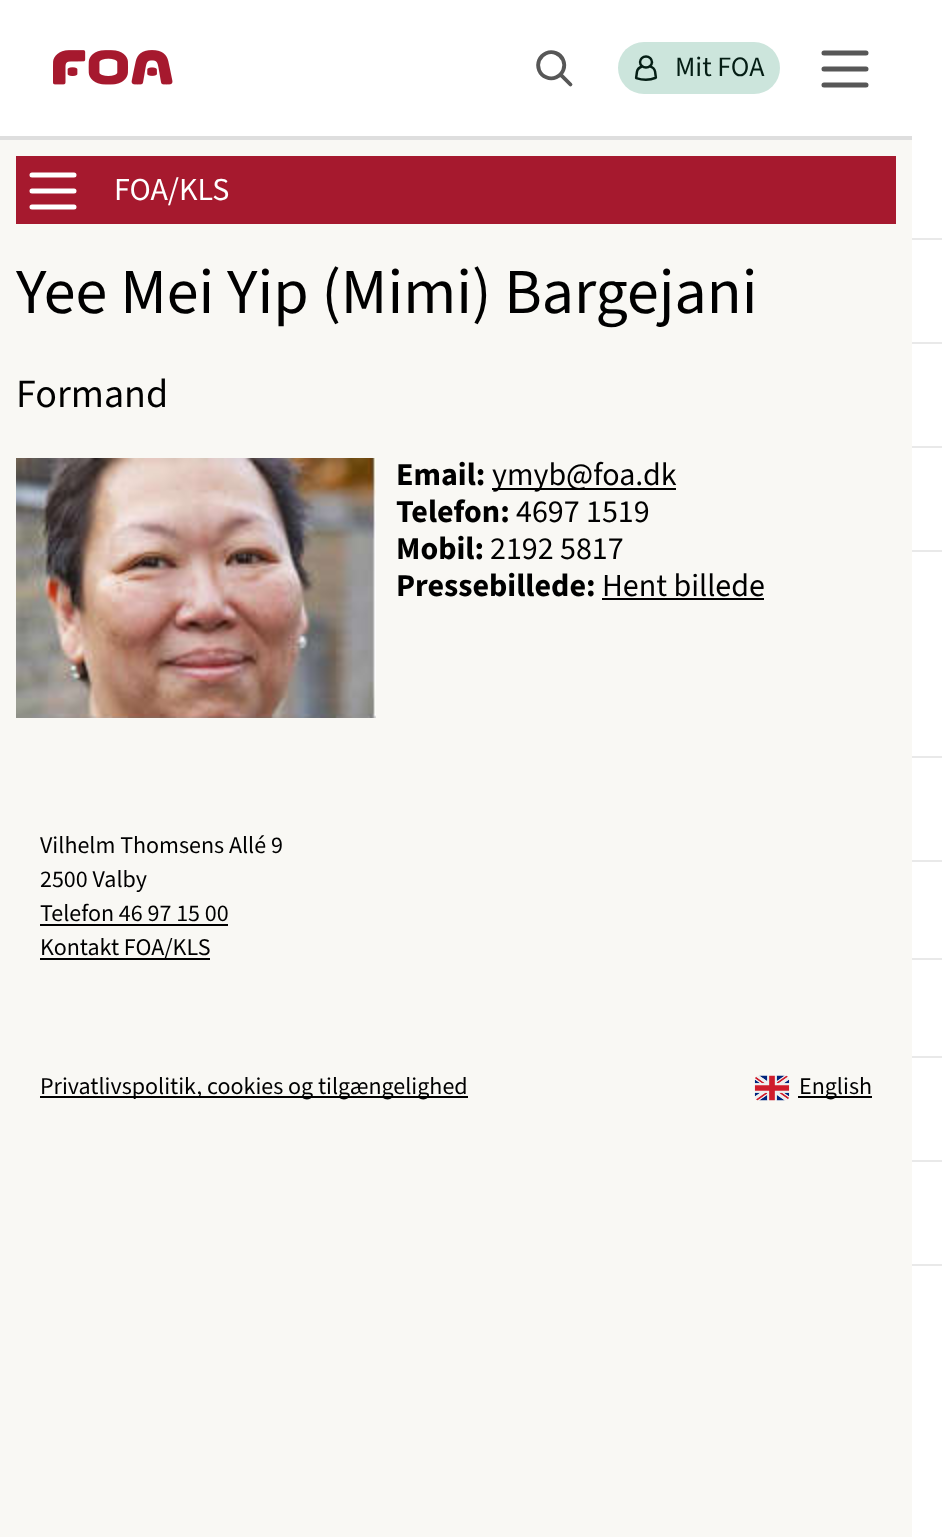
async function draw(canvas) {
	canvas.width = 942;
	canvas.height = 1537;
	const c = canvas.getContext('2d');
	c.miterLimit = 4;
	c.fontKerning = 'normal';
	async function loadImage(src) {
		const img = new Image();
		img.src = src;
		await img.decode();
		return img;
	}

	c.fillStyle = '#fff';
	c.fillRect(0, 0, 942, 1537);
	c.fillStyle = '#f9f8f4';
	c.fillRect(0, 140, 912, 1397);
	c.fillStyle = '#dedede';
	c.fillRect(0, 136, 912, 4);
	c.drawImage(await loadImage('img1.png'), 53, 50, 120, 35);
	c.drawImage(await loadImage('img2.png'), 536, 50, 37, 37);
	c.fillStyle = '#cce5dc';
	c.beginPath();
	c.roundRect(618, 42, 162, 52, 26);
	c.fill();
	c.drawImage(await loadImage('img3.png'), 634, 55, 24, 26);
	c.font = '28px "Source Sans 3"';
	c.fillStyle = '#041d14';
	c.fillText('Mit FOA', 675, 76);
	c.beginPath();
	c.moveTo(824, 53);
	c.lineTo(866, 53);
	c.moveTo(824, 69);
	c.lineTo(866, 69);
	c.moveTo(824, 85);
	c.lineTo(866, 85);
	c.strokeStyle = '#575757';
	c.lineWidth = 5;
	c.lineCap = 'round';
	c.stroke();
	for (const [x, y, w, h, color] of [
		[912, 238, 30, 2, '#e9e9e9'],
		[912, 342, 30, 2, '#e9e9e9'],
		[912, 446, 30, 2, '#e9e9e9'],
		[912, 550, 30, 2, '#e9e9e9'],
		[912, 756, 30, 2, '#e9e9e9'],
		[912, 860, 30, 2, '#e9e9e9'],
		[912, 958, 30, 2, '#e9e9e9'],
		[912, 1056, 30, 2, '#e9e9e9'],
		[912, 1160, 30, 2, '#e9e9e9'],
		[912, 1264, 30, 2, '#e9e9e9'],
		[16, 156, 880, 68, '#a6192e'],
	]) {
		c.fillStyle = color;
		c.fillRect(x, y, w, h);
	}
	c.beginPath();
	c.moveTo(32, 175);
	c.lineTo(74, 175);
	c.moveTo(32, 191);
	c.lineTo(74, 191);
	c.moveTo(32, 207);
	c.lineTo(74, 207);
	c.strokeStyle = '#fff';
	c.stroke();
	c.font = '32px "Source Sans 3"';
	c.fillStyle = '#fff';
	c.fillText('FOA/KLS', 114, 200);
	c.font = '64px "Source Sans 3"';
	c.fillStyle = '#000';
	c.fillText('Yee Mei Yip (Mimi) Bargejani', 16, 313);
	c.font = '40px "Source Sans 3"';
	c.fillText('Formand', 16, 407);
	c.drawImage(await loadImage('img4.png'), 16, 458, 360, 260);
	c.font = 'bold 32px "Source Sans 3"';
	c.fillText('Email:', 396, 485);
	c.fillRect(492, 488, 184, 2);
	c.font = '32px "Source Sans 3"';
	c.fillText('ymyb@foa.dk', 492, 485);
	c.font = 'bold 32px "Source Sans 3"';
	c.fillText('Telefon:', 396, 522);
	c.font = '32px "Source Sans 3"';
	c.fillText('4697 1519', 516, 522);
	c.font = 'bold 32px "Source Sans 3"';
	c.fillText('Mobil:', 396, 559);
	c.font = '32px "Source Sans 3"';
	c.fillText('2192 5817', 490, 559);
	c.font = 'bold 32px "Source Sans 3"';
	c.fillText('Pressebillede:', 396, 596);
	c.font = '32px "Source Sans 3"';
	c.fillText('Hent billede', 602, 596);
	c.fillRect(602, 598, 162, 2);
	c.font = '24px "Source Sans 3"';
	for (const [text, x, y] of [
		['Vilhelm Thomsens Allé 9', 40, 853],
		['2500 Valby', 40, 887],
		['Telefon 46 97 15 00', 40, 921],
	]) {
		c.fillText(text, x, y);
	}
	c.fillRect(40, 924, 188, 2);
	c.fillRect(40, 958, 170, 2);
	c.fillText('Kontakt FOA/KLS', 40, 955);
	c.fillRect(40, 1096, 428, 2);
	c.fillText('Privatlivspolitik, cookies og tilgængelighed', 40, 1094);
	c.drawImage(await loadImage('img5.png'), 754, 1075, 36, 26);
	c.fillRect(798, 1096, 74, 2);
	c.fillText('English', 799, 1094);
}

draw(document.querySelector('canvas'));
